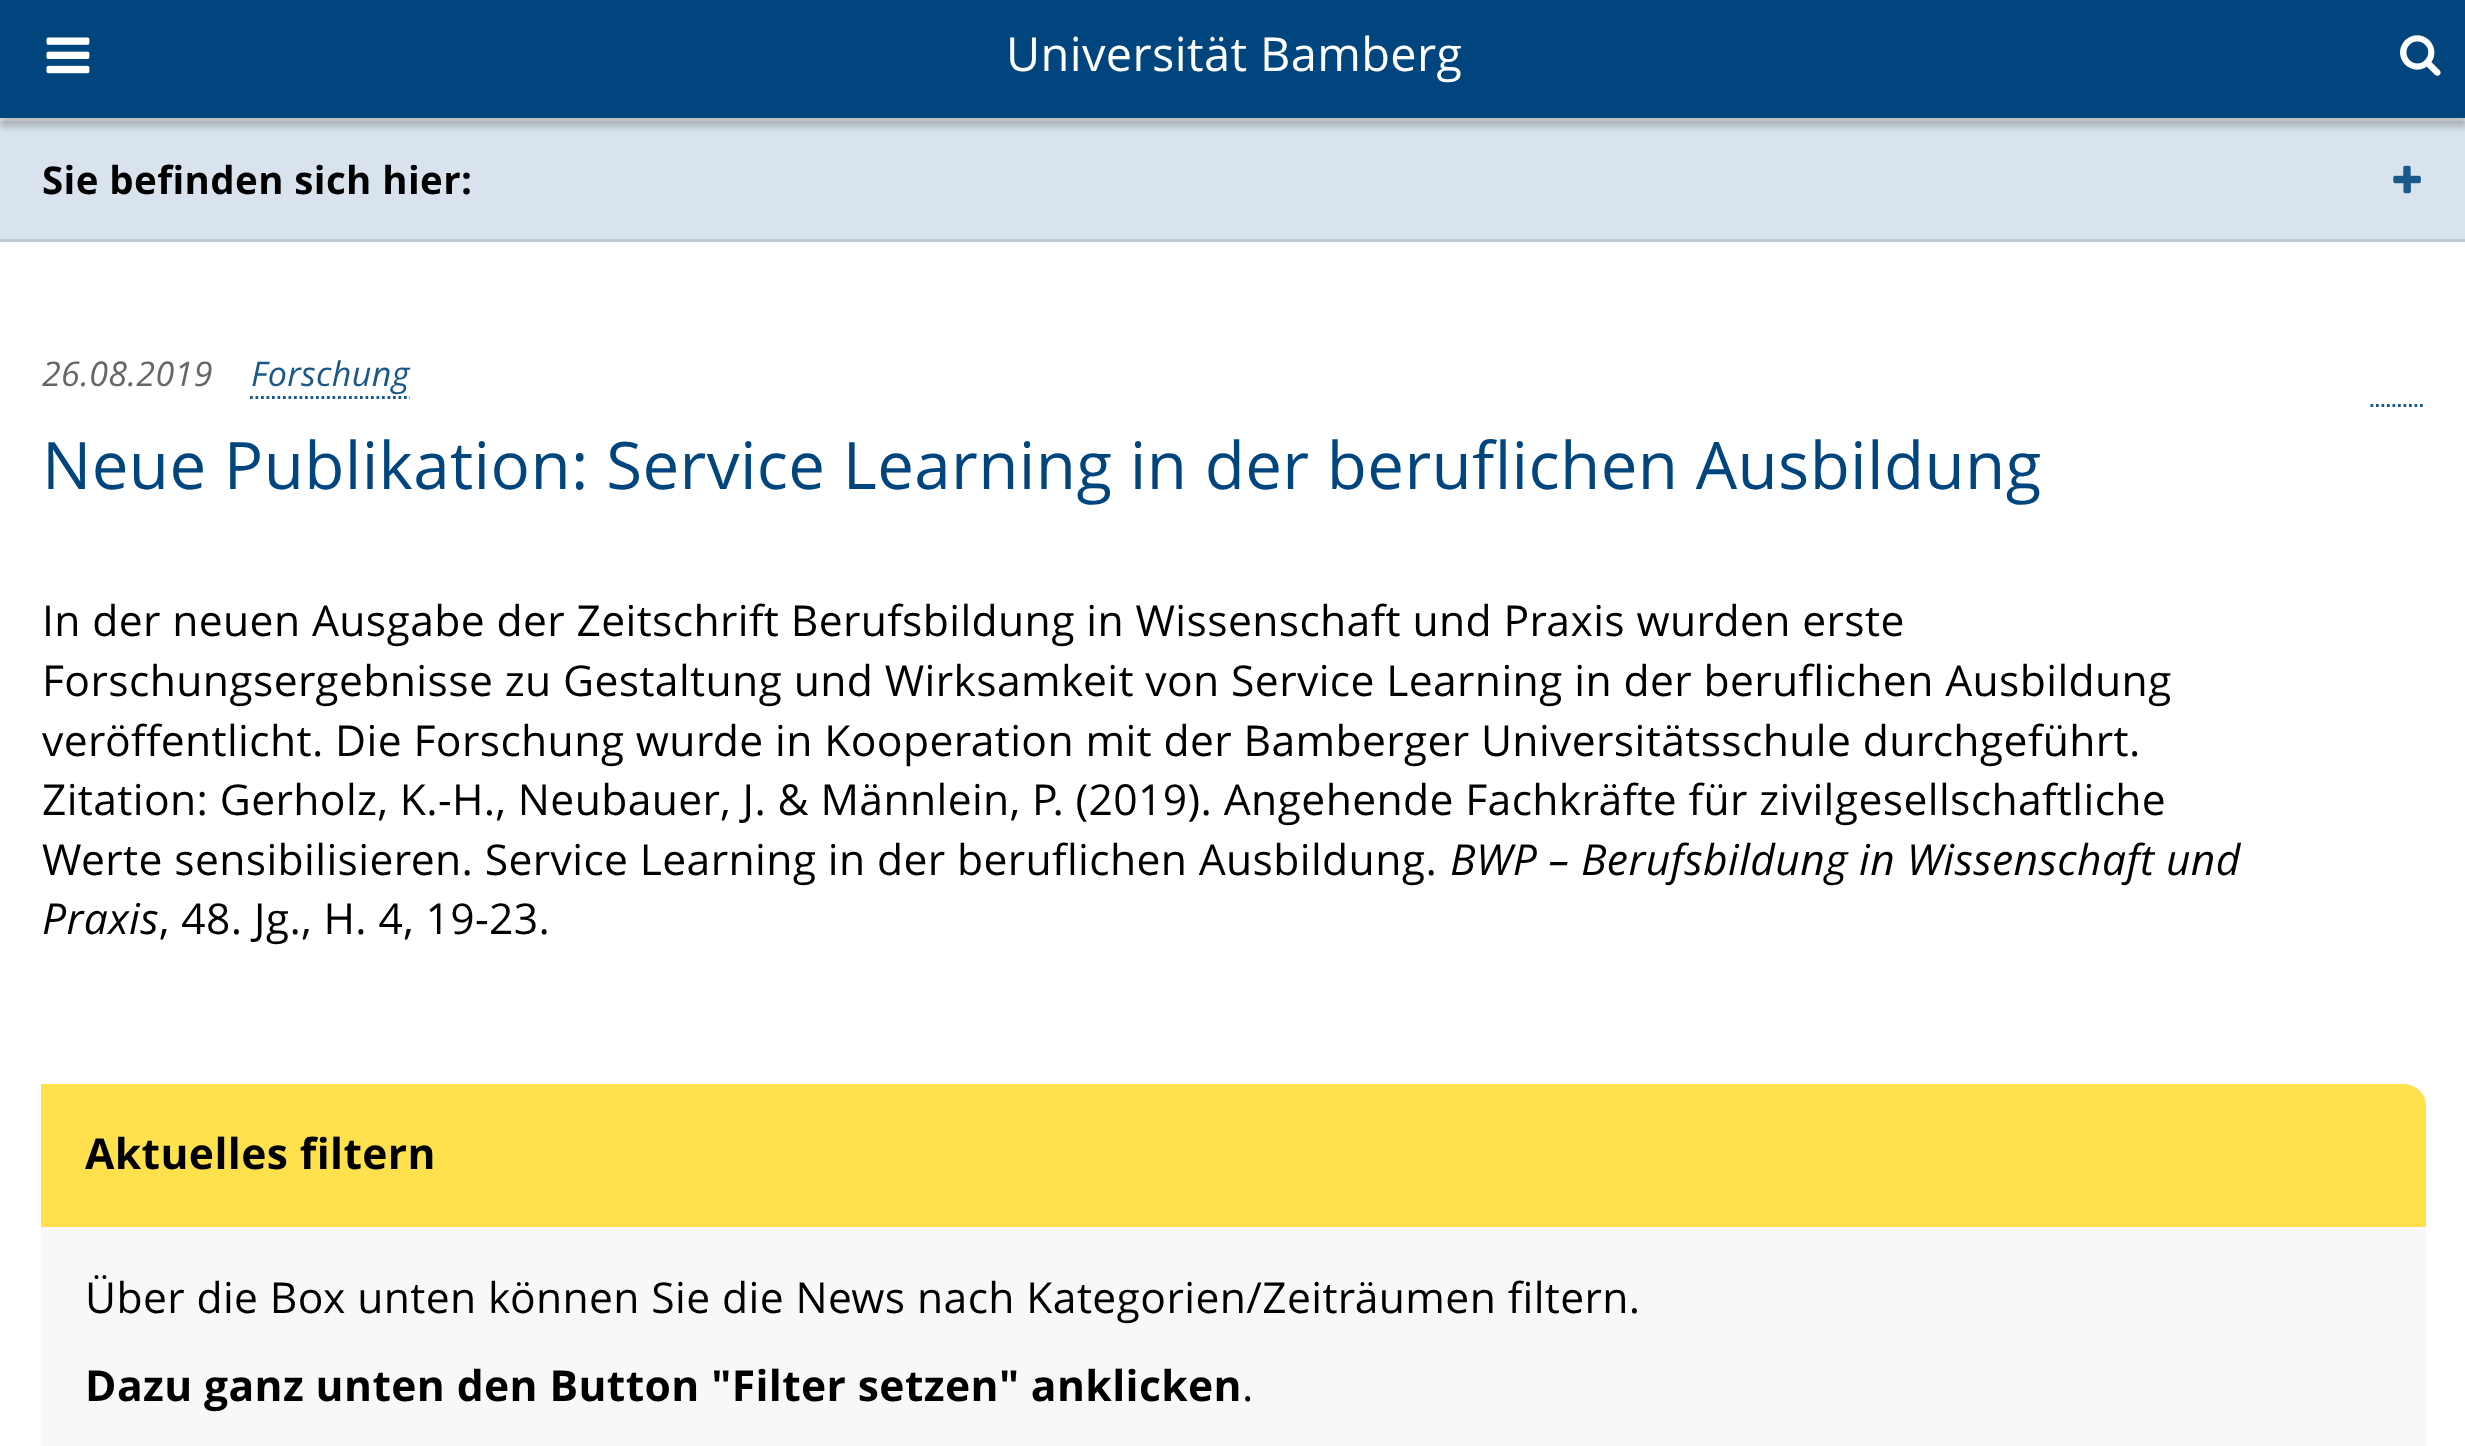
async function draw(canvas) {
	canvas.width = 2465;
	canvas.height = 1446;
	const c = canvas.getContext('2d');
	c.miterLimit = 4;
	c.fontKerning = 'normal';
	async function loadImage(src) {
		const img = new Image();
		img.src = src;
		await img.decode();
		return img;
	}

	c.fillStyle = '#fff';
	c.fillRect(0, 0, 2465, 1446);
	c.fillStyle = '#d8e3ed';
	c.fillRect(0, 121, 2465, 118);
	c.fillStyle = '#f2f2f2';
	c.fillRect(0, 118, 2465, 3);
	c.fillStyle = '#00000033';
	c.filter = 'blur(3px)';
	c.beginPath();
	c.rect(0, 8, 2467, 119);
	c.fill();
	c.filter = 'none';
	c.fillStyle = '#00457d';
	c.fillRect(0, 0, 2465, 118);
	c.drawImage(await loadImage('img1.png'), 46, 37, 44, 37);
	c.letterSpacing = '0.39px';
	c.font = '46.9px Open Sans';
	c.fillStyle = '#fff';
	c.fillText('Universität Bamberg', 1006, 71);
	c.drawImage(await loadImage('img2.png'), 2400, 35, 41, 41);
	c.fillStyle = '#c1cad2';
	c.fillRect(0, 239, 2465, 3);
	c.font = 'bold 38.5px Open Sans';
	c.fillStyle = '#000';
	c.fillText('Sie befinden sich hier:', 42, 194);
	c.drawImage(await loadImage('img3.png'), 2393, 165, 28, 29);
	c.font = 'italic 34px Open Sans';
	c.fillStyle = '#666';
	c.fillText('26.08.2019', 42, 386);
	c.fillStyle = '#1a588a';
	c.fillText('Forschung', 251, 386);
	c.beginPath();
	c.moveTo(250, 397.5);
	c.lineTo(410, 397.5);
	c.strokeStyle = '#1a588a';
	c.lineWidth = 2.8;
	c.setLineDash([2.75, 2.75]);
	c.stroke();
	c.font = '65.45px Open Sans';
	c.fillStyle = '#00457d';
	c.fillText('Neue Publikation: Service Learning in der beruflichen Ausbildung', 42, 489);
	c.font = '42.6px Open Sans';
	c.fillStyle = '#000';
	for (const [text, x, y] of [
		['In der neuen Ausgabe der Zeitschrift Berufsbildung in Wissenschaft und Praxis wurden erste', 42, 636],
		['Forschungsergebnisse zu Gestaltung und Wirksamkeit von Service Learning in der beruflichen Ausbildung', 42, 696],
		['veröffentlicht. Die Forschung wurde in Kooperation mit der Bamberger Universitätsschule durchgeführt.', 42, 756],
		['Zitation: Gerholz, K.-H., Neubauer, J. & Männlein, P. (2019). Angehende Fachkräfte für zivilgesellschaftliche', 42, 815],
		['Werte sensibilisieren. Service Learning in der beruflichen Ausbildung.', 42, 875],
	]) {
		c.fillText(text, x, y);
	}
	c.font = 'italic 42.6px Open Sans';
	c.fillText('BWP – Berufsbildung in Wissenschaft und', 1450, 875);
	c.fillText('Praxis', 42, 934);
	c.font = '42.6px Open Sans';
	c.fillText(', 48. Jg., H. 4, 19-23.', 159, 934);
	c.beginPath();
	c.moveTo(2370.5, 405.5);
	c.lineTo(2425.5, 405.5);
	c.stroke();
	c.fillStyle = '#ffe04d';
	c.beginPath();
	c.roundRect(41, 1084, 2385, 143, [0, 22, 0, 0]);
	c.fill();
	c.font = 'bold 42.6px Open Sans';
	c.fillStyle = '#000';
	c.fillText('Aktuelles filtern', 85, 1169);
	c.fillStyle = '#f8f8f8';
	c.fillRect(41, 1227, 2385, 219);
	c.font = '42.6px Open Sans';
	c.fillStyle = '#000';
	c.fillText('Über die Box unten können Sie die News nach Kategorien/Zeiträumen filtern.', 85, 1313);
	c.font = 'bold 42.6px Open Sans';
	c.fillText('Dazu ganz unten den Button "Filter setzen" anklicken', 85, 1401);
	c.font = '42.6px Open Sans';
	c.fillText('.', 1242, 1401);
}

draw(document.querySelector('canvas'));
